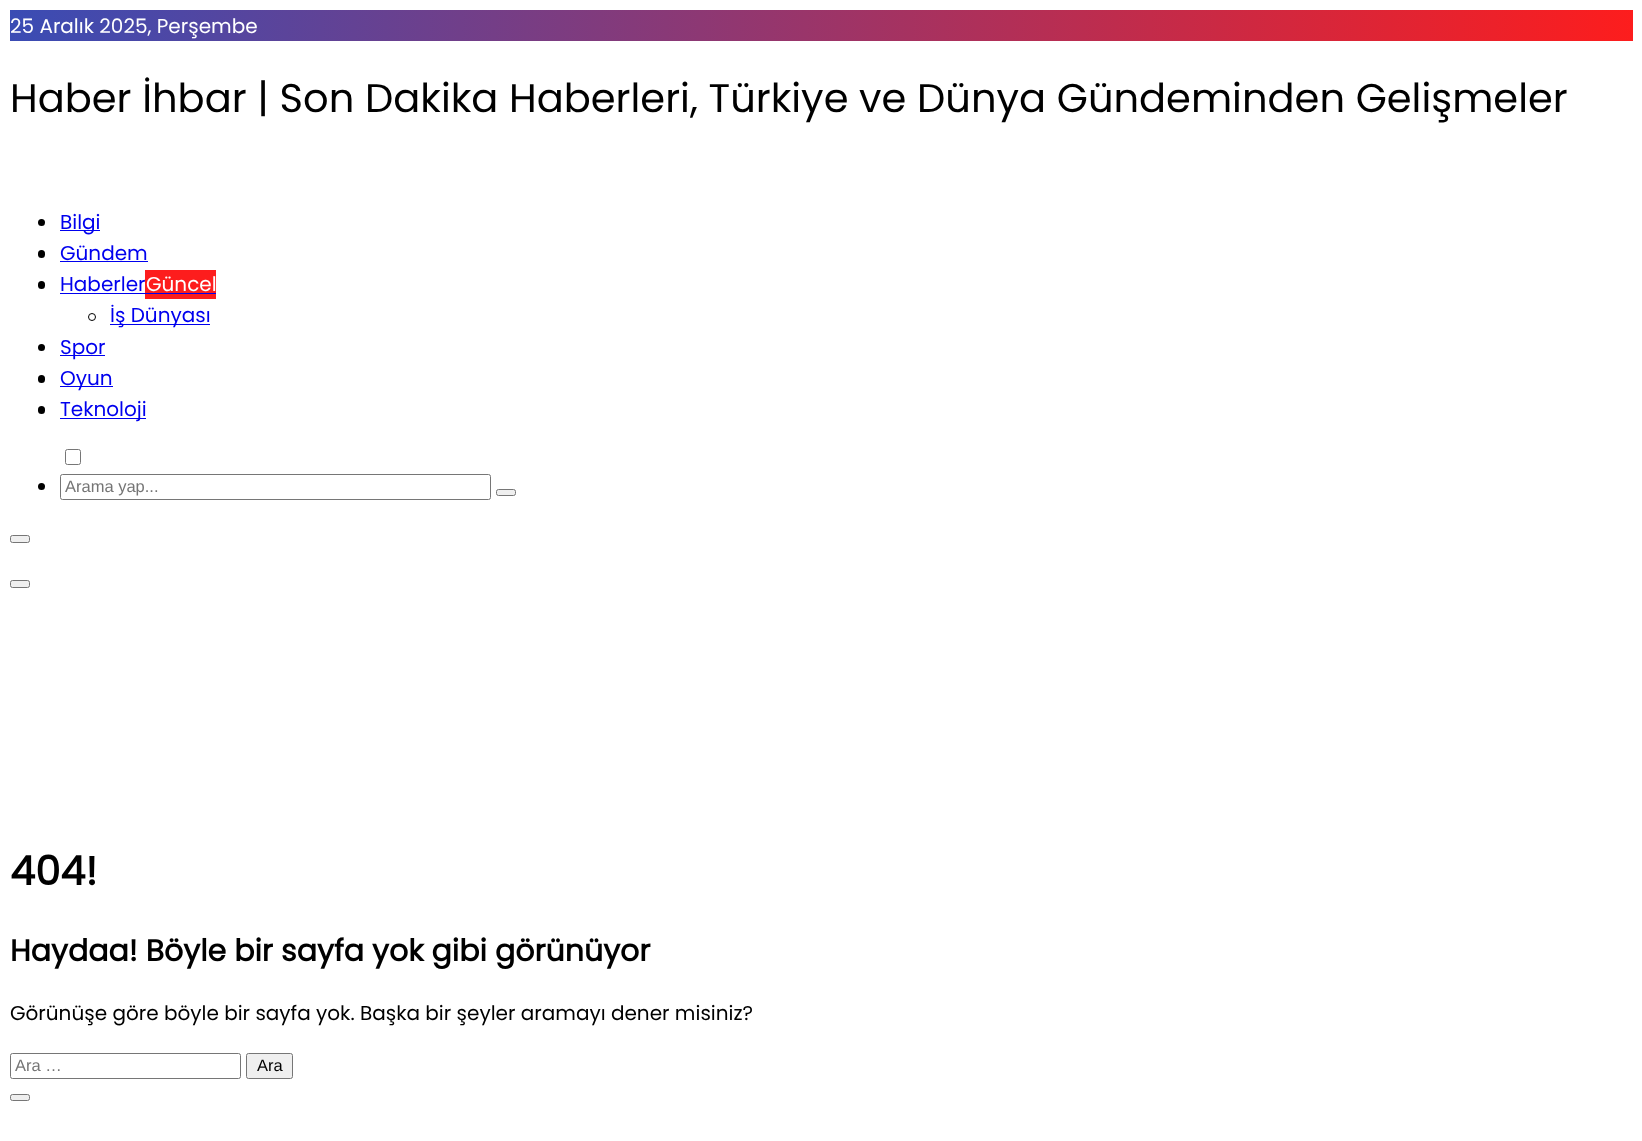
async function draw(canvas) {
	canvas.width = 1642;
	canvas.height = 1141;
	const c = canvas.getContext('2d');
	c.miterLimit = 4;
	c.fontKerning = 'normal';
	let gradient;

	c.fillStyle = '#fff';
	c.fillRect(0, 0, 1642, 1141);
	gradient = c.createLinearGradient(10, 26, 1633, 26);
	gradient.addColorStop(0, '#3a4cb4');
	gradient.addColorStop(1, '#fd1d1d');
	c.fillStyle = gradient;
	c.fillRect(10, 10, 1623, 31);
	c.font = '20px Poppins';
	c.fillStyle = '#fff';
	c.fillText('25 Aralık 2025, Perşembe', 10, 33);
	c.font = '40px Poppins';
	c.fillStyle = '#000';
	c.fillText('Haber İhbar | Son Dakika Haberleri, Türkiye ve Dünya Gündeminden Gelişmeler', 10, 112);
	c.beginPath();
	c.arc(41.5, 222.5, 3.5, 0, 2 * Math.PI);
	c.fill();
	c.fillStyle = '#00e';
	c.fillRect(60, 230, 40, 1);
	c.font = '20px Poppins';
	c.fillText('Bilgi', 60, 229);
	c.fillStyle = '#000';
	c.beginPath();
	c.roundRect(38, 250, 7, 8, 3.5);
	c.fill();
	c.fillStyle = '#00e';
	c.fillText('Gündem', 60, 260);
	c.fillRect(60, 261, 88, 1);
	c.fillStyle = '#000';
	c.beginPath();
	c.roundRect(38, 281, 7, 8, 3.5);
	c.fill();
	c.fillStyle = '#00e';
	c.fillText('Haberler', 60, 291);
	for (const [x, y, w, h, color] of [
		[60, 293, 85, 1, '#00e'],
		[145, 270, 71, 29, '#fd1d1d'],
		[145, 293, 71, 1, '#00e'],
	]) {
		c.fillStyle = color;
		c.fillRect(x, y, w, h);
	}
	c.fillStyle = '#fff';
	c.fillText('Güncel', 146, 291);
	c.beginPath();
	c.arc(92, 317, 3.5, 0, 2 * Math.PI);
	c.strokeStyle = '#000';
	c.stroke();
	c.fillStyle = '#00e';
	c.fillRect(110, 324, 100, 1);
	c.fillText('İş Dünyası', 110, 322);
	c.fillStyle = '#000';
	c.beginPath();
	c.arc(41.5, 347.5, 3.5, 0, 2 * Math.PI);
	c.fill();
	c.fillStyle = '#00e';
	c.fillRect(60, 355, 45, 1);
	c.fillText('Spor', 60, 354);
	c.fillStyle = '#000';
	c.beginPath();
	c.roundRect(38, 375, 7, 8, 3.5);
	c.fill();
	c.fillStyle = '#00e';
	c.fillRect(60, 386, 53, 1);
	c.fillText('Oyun', 60, 385);
	c.fillStyle = '#000';
	c.beginPath();
	c.roundRect(38, 406, 7, 8, 3.5);
	c.fill();
	c.fillStyle = '#00e';
	c.fillRect(60, 418, 86, 1);
	c.fillText('Teknoloji', 60, 416);
	c.beginPath();
	c.roundRect(65.5, 449.5, 15, 15, 2);
	c.strokeStyle = '#767676';
	c.stroke();
	c.fillStyle = '#000';
	c.beginPath();
	c.arc(41.5, 486.5, 3.5, 0, 2 * Math.PI);
	c.fill();
	c.beginPath();
	c.roundRect(60.5, 474.5, 430, 25, 2);
	c.stroke();
	c.font = '16.5px Liberation Sans';
	c.fillStyle = '#757575';
	c.fillText('Arama yap...', 65, 492);
	c.fillStyle = '#efefef';
	c.beginPath();
	c.roundRect(496.5, 489.5, 19, 6, 2);
	c.fill();
	c.stroke();
	c.beginPath();
	c.roundRect(10.5, 535.5, 19, 7, 2);
	c.fill();
	c.stroke();
	c.beginPath();
	c.roundRect(10.5, 580.5, 19, 7, 2);
	c.fill();
	c.stroke();
	c.font = 'bold 40px Poppins';
	c.fillStyle = '#000';
	c.fillText('404!', 10, 885);
	c.font = 'bold 30px Poppins';
	c.fillText('Haydaa! Böyle bir sayfa yok gibi görünüyor', 10, 961);
	c.font = '20px Poppins';
	c.fillText('Görünüşe göre böyle bir sayfa yok. Başka bir şeyler aramayı dener misiniz?', 10, 1020);
	c.beginPath();
	c.roundRect(10.5, 1053.5, 230, 25, 2);
	c.stroke();
	c.font = '16.5px Liberation Sans';
	c.fillStyle = '#757575';
	c.fillText('Ara …', 15, 1071);
	c.fillStyle = '#efefef';
	c.beginPath();
	c.roundRect(246.5, 1053.5, 46, 25, 2);
	c.fill();
	c.stroke();
	c.fillStyle = '#000';
	c.fillText('Ara', 257, 1071);
	c.fillStyle = '#efefef';
	c.beginPath();
	c.roundRect(10.5, 1094.5, 19, 6, 2);
	c.fill();
	c.stroke();
}

draw(document.querySelector('canvas'));
